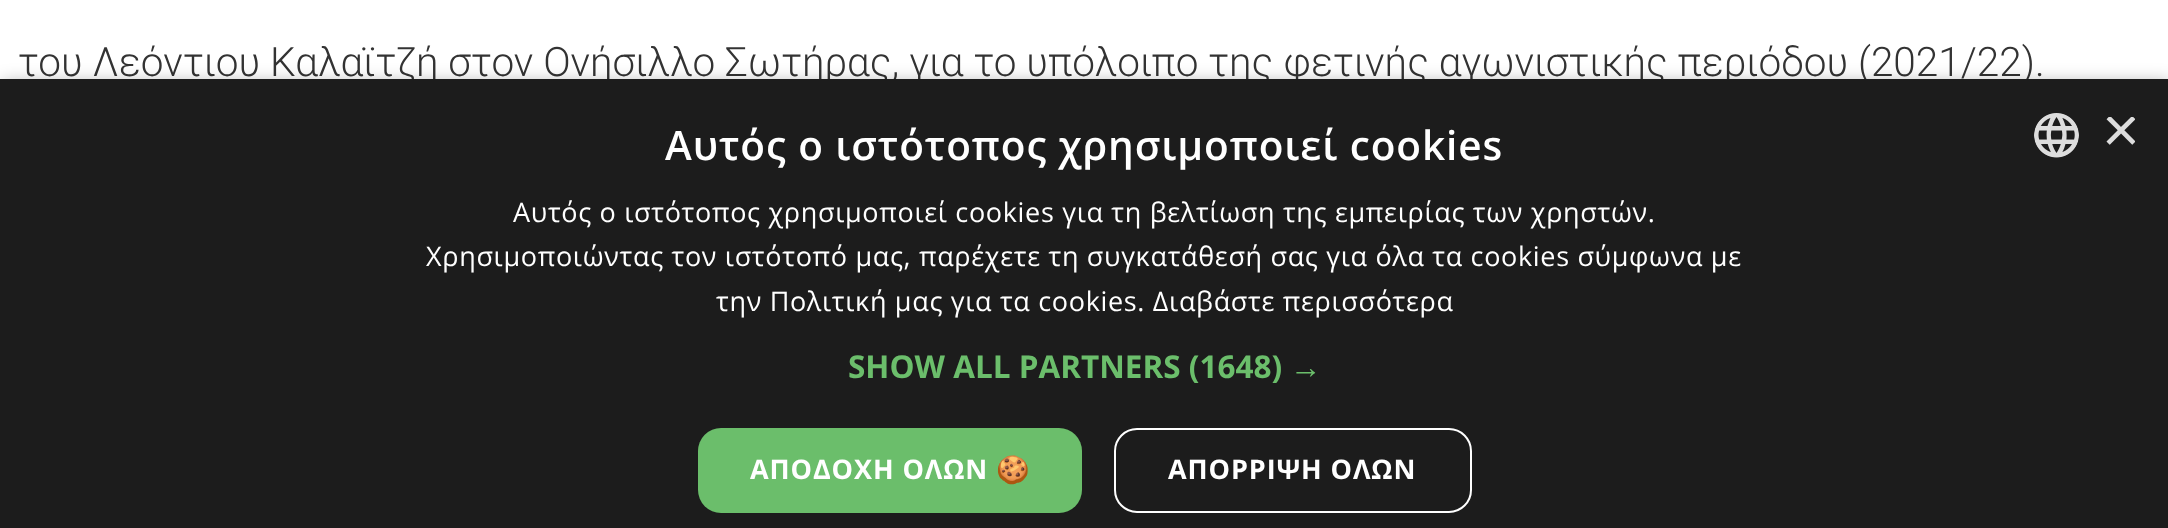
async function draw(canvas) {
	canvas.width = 2168;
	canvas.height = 528;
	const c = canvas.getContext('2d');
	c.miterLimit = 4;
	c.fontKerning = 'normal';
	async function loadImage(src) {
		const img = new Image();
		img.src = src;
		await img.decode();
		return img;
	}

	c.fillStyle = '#fff';
	c.fillRect(0, 0, 2168, 528);
	c.font = '300 40.5px Roboto';
	c.fillStyle = '#333';
	c.fillText('του Λεόντιου Καλαϊτζή στον Ονήσιλλο Σωτήρας, για το υπόλοιπο της φετινής αγωνιστικής περιόδου (2021/22).', 18, 76);
	c.fillStyle = '#00000059';
	c.filter = 'blur(9px)';
	c.beginPath();
	c.rect(2, 83, 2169, 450);
	c.fill();
	c.filter = 'none';
	c.fillStyle = '#1c1c1c';
	c.fillRect(0, 79, 2168, 449);
	c.letterSpacing = '0.9px';
	c.font = '600 40.5px Open Sans';
	c.fillStyle = '#fff';
	c.fillText('Αυτός ο ιστότοπος χρησιμοποιεί cookies', 665, 160);
	c.drawImage(await loadImage('img1.png'), 2034, 113, 45, 45);
	c.save();
	c.beginPath();
	c.rect(2102, 117, 33, 34);
	c.clip();
	c.letterSpacing = '0px';
	c.font = '65px Liberation Sans';
	c.fillStyle = '#ddd';
	c.fillText('×', 2102, 152);
	c.restore();
	c.letterSpacing = '0.67px';
	c.font = '27px Open Sans';
	for (const [text, x, y] of [
		['Αυτός ο ιστότοπος χρησιμοποιεί cookies για τη βελτίωση της εμπειρίας των χρηστών.', 513, 222],
		['Χρησιμοποιώντας τον ιστότοπό μας, παρέχετε τη συγκατάθεσή σας για όλα τα cookies σύμφωνα με', 426, 266],
		['την Πολιτική μας για τα cookies. Διαβάστε περισσότερα', 716, 311],
	]) {
		c.fillText(text, x, y);
	}
	c.letterSpacing = '0px';
	c.font = 'bold 31.5px Open Sans';
	c.fillStyle = '#6bbe6b';
	c.fillText('SHOW ALL PARTNERS (1648)', 848, 378);
	c.font = 'bold 31.5px Liberation Sans';
	c.fillText('→', 1290, 378);
	c.beginPath();
	c.roundRect(698, 428, 384, 85, 23);
	c.fill();
	c.letterSpacing = '0.9px';
	c.font = 'bold 27px Open Sans';
	c.fillStyle = '#fff';
	c.fillText('ΑΠΟΔΟΧΗ ΟΛΩΝ', 750, 479);
	c.font = 'bold 27px Noto Color Emoji';
	c.fillText('🍪', 996, 479);
	c.beginPath();
	c.roundRect(1115, 429, 356, 83, 22);
	c.strokeStyle = '#fff';
	c.lineWidth = 2;
	c.stroke();
	c.font = 'bold 27px Open Sans';
	c.fillText('ΑΠΟΡΡΙΨΗ ΟΛΩΝ', 1168, 479);
}

draw(document.querySelector('canvas'));
